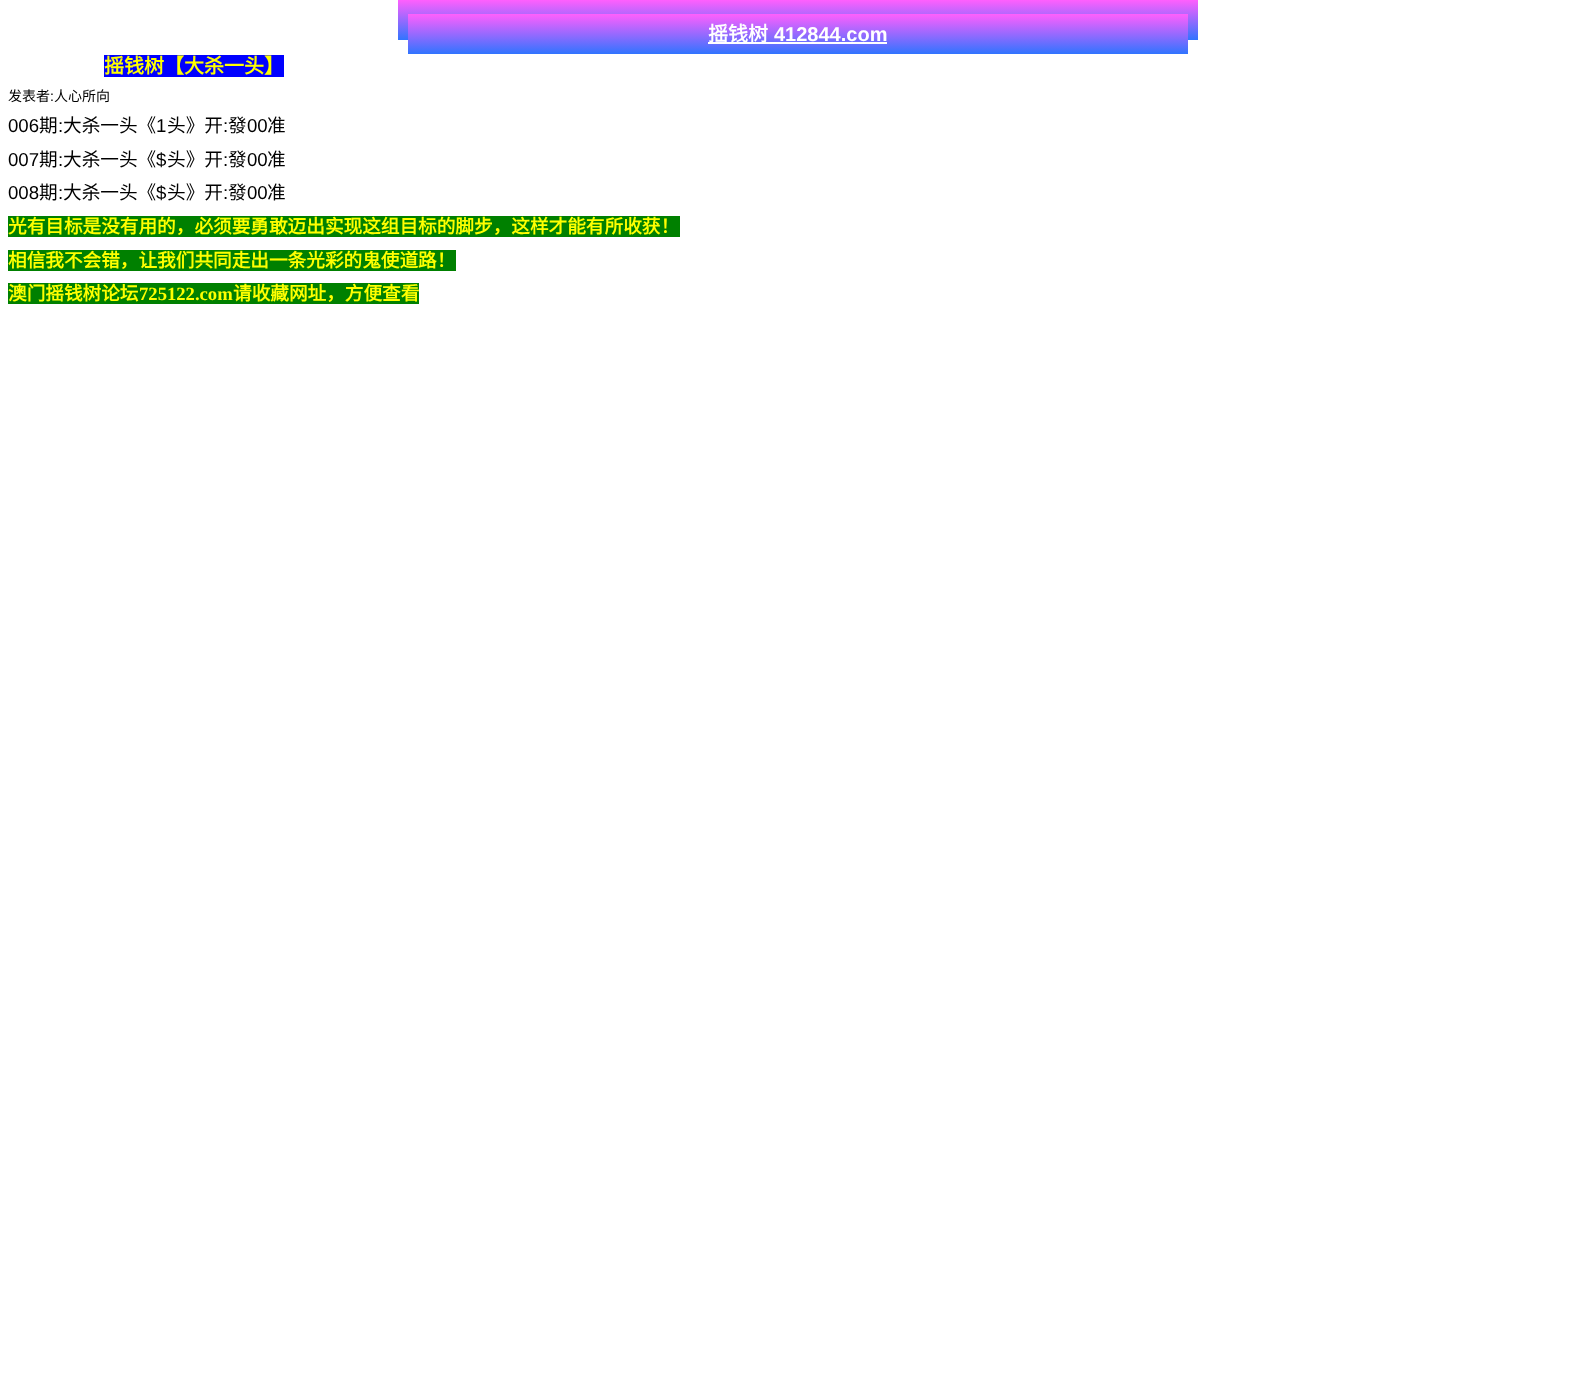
async function draw(canvas) {
	canvas.width = 1595;
	canvas.height = 1397;
	const c = canvas.getContext('2d');
	c.miterLimit = 4;
	c.fontKerning = 'normal';
	let gradient;

	c.fillStyle = '#fff';
	c.fillRect(0, 0, 1595, 1397);
	gradient = c.createLinearGradient(798, 40, 798, 0);
	gradient.addColorStop(0, '#3074ff');
	gradient.addColorStop(1, '#ff5ffd');
	c.fillStyle = gradient;
	c.fillRect(398, 0, 800, 40);
	gradient = c.createLinearGradient(798, 54, 798, 14);
	gradient.addColorStop(0, '#3074ff');
	gradient.addColorStop(1, '#ff5ffd');
	c.fillStyle = gradient;
	c.fillRect(408, 14, 780, 40);
	c.fillStyle = '#fff';
	c.fillRect(708, 42, 179, 2);
	c.font = 'bold 20px Noto Sans CJK SC';
	c.fillText('摇钱树', 708, 41);
	c.font = 'bold 20px Liberation Sans';
	c.fillText('412844.com', 774, 41);
	c.fillStyle = '#00f';
	c.fillRect(104, 55, 180, 22);
	c.font = 'bold 20px Noto Sans CJK SC';
	c.fillStyle = '#ff0';
	c.fillText('摇钱树【大杀一头】', 104, 73);
	c.font = '14px Noto Sans CJK SC';
	c.fillStyle = '#000';
	c.fillText('发表者', 8, 101);
	c.font = '14px Liberation Sans';
	c.fillText(':', 50, 101);
	c.font = '14px Noto Sans CJK SC';
	c.fillText('人心所向', 54, 101);
	c.font = '18.65px Liberation Sans';
	c.fillText('006', 8, 132);
	c.font = '18.65px Noto Sans CJK SC';
	c.fillText('期', 39, 132);
	c.font = '18.65px Liberation Sans';
	c.fillText(':', 58, 132);
	c.font = '18.65px Noto Sans CJK SC';
	c.fillText('大杀一头《', 63, 132);
	c.font = '18.65px Liberation Sans';
	c.fillText('1', 156, 132);
	c.font = '18.65px Noto Sans CJK SC';
	c.fillText('头》开', 167, 132);
	c.font = '18.65px Liberation Sans';
	c.fillText(':', 223, 132);
	c.font = '18.65px Noto Sans CJK SC';
	c.fillText('發', 228, 132);
	c.font = '18.65px Liberation Sans';
	c.fillText('00', 247, 132);
	c.font = '18.65px Noto Sans CJK SC';
	c.fillText('准', 267, 132);
	c.font = '18.65px Liberation Sans';
	c.fillText('007', 8, 166);
	c.font = '18.65px Noto Sans CJK SC';
	c.fillText('期', 39, 166);
	c.font = '18.65px Liberation Sans';
	c.fillText(':', 58, 166);
	c.font = '18.65px Noto Sans CJK SC';
	c.fillText('大杀一头《', 63, 166);
	c.font = '18.65px Liberation Sans';
	c.fillText('$', 156, 166);
	c.font = '18.65px Noto Sans CJK SC';
	c.fillText('头》开', 167, 166);
	c.font = '18.65px Liberation Sans';
	c.fillText(':', 223, 166);
	c.font = '18.65px Noto Sans CJK SC';
	c.fillText('發', 228, 166);
	c.font = '18.65px Liberation Sans';
	c.fillText('00', 247, 166);
	c.font = '18.65px Noto Sans CJK SC';
	c.fillText('准', 267, 166);
	c.font = '18.65px Liberation Sans';
	c.fillText('008', 8, 199);
	c.font = '18.65px Noto Sans CJK SC';
	c.fillText('期', 39, 199);
	c.font = '18.65px Liberation Sans';
	c.fillText(':', 58, 199);
	c.font = '18.65px Noto Sans CJK SC';
	c.fillText('大杀一头《', 63, 199);
	c.font = '18.65px Liberation Sans';
	c.fillText('$', 156, 199);
	c.font = '18.65px Noto Sans CJK SC';
	c.fillText('头》开', 167, 199);
	c.font = '18.65px Liberation Sans';
	c.fillText(':', 223, 199);
	c.font = '18.65px Noto Sans CJK SC';
	c.fillText('發', 228, 199);
	c.font = '18.65px Liberation Sans';
	c.fillText('00', 247, 199);
	c.font = '18.65px Noto Sans CJK SC';
	c.fillText('准', 267, 199);
	c.fillStyle = '#008000';
	c.fillRect(8, 216, 672, 21);
	c.font = 'bold 18.65px Noto Sans CJK SC';
	c.fillStyle = '#ff0';
	c.fillText('光有目标是没有用的，必须要勇敢迈出实现这组目标的脚步，这样才能有所收获！', 8, 233);
	c.fillStyle = '#008000';
	c.fillRect(8, 250, 448, 21);
	c.fillStyle = '#ff0';
	c.fillText('相信我不会错，让我们共同走出一条光彩的鬼使道路！', 8, 267);
	c.fillStyle = '#008000';
	c.fillRect(8, 283, 411, 21);
	c.fillStyle = '#ff0';
	c.fillText('澳门摇钱树论坛', 8, 300);
	c.font = 'bold 18.65px Liberation Serif';
	c.fillText('725122.com', 139, 300);
	c.font = 'bold 18.65px Noto Sans CJK SC';
	c.fillText('请收藏网址，方便查看', 233, 300);
}

draw(document.querySelector('canvas'));
